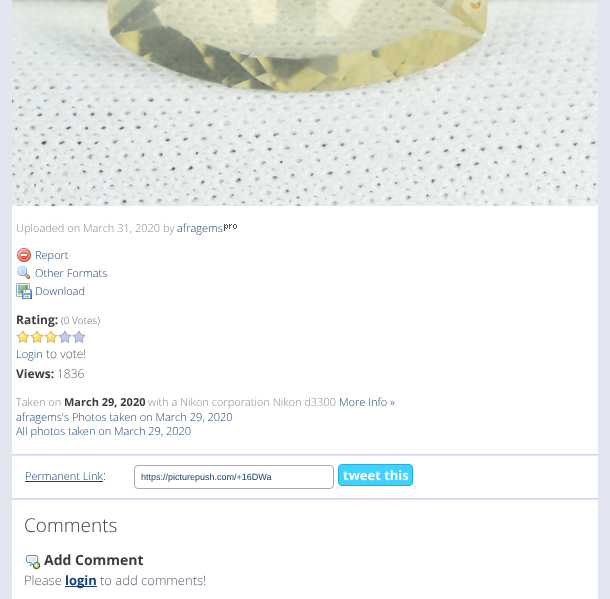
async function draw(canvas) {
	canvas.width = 610;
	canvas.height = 599;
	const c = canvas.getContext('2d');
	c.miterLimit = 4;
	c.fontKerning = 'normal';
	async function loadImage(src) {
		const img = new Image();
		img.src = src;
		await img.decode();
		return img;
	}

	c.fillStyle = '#e3e6f1';
	c.fillRect(0, 0, 610, 599);
	c.fillStyle = '#fff';
	c.fillRect(12, 206, 586, 248);
	c.fillStyle = '#cfd4ff';
	c.fillRect(12, 454, 586, 1);
	c.drawImage(await loadImage('img1.png'), 12, 0, 586, 206);
	c.font = '300 11px Open Sans';
	c.fillStyle = '#888';
	c.fillText('Uploaded on March 31, 2020 by', 16, 232);
	c.fillStyle = '#163f73';
	c.fillText('afragems', 177, 232);
	c.drawImage(await loadImage('img2.png'), 224, 224, 13, 7);
	c.drawImage(await loadImage('img3.png'), 17, 248, 14, 14);
	c.fillText('Report', 35, 259);
	c.drawImage(await loadImage('img4.png'), 17, 266, 13, 14);
	c.fillText('Other Formats', 35, 277);
	c.drawImage(await loadImage('img5.png'), 16, 283, 16, 16);
	c.fillText('Download', 35, 295);
	c.font = 'bold 12px Open Sans';
	c.fillStyle = '#3e3e41';
	c.fillText('Rating:', 16, 324);
	c.font = '300 10px Open Sans';
	c.fillStyle = '#5a5c6c';
	c.fillText('(0 Votes)', 61, 324);
	c.drawImage(await loadImage('img6.png'), 16, 330, 14, 13);
	c.drawImage(await loadImage('img6.png'), 30, 330, 14, 13);
	c.drawImage(await loadImage('img6.png'), 44, 330, 14, 13);
	c.drawImage(await loadImage('img7.png'), 58, 330, 14, 13);
	c.drawImage(await loadImage('img7.png'), 72, 330, 14, 13);
	c.font = '300 11px Open Sans';
	c.fillStyle = '#163f73';
	c.fillText('Login', 16, 358);
	c.font = '300 12px Open Sans';
	c.fillStyle = '#5a5c6c';
	c.fillText('to vote!', 46, 358);
	c.font = 'bold 12px Open Sans';
	c.fillStyle = '#3e3e41';
	c.fillText('Views:', 16, 378);
	c.font = '300 12px Open Sans';
	c.fillStyle = '#5a5c6c';
	c.fillText('1836', 57, 378);
	c.font = '300 11px Open Sans';
	c.fillStyle = '#888';
	c.fillText('Taken on', 16, 406);
	c.font = 'bold 11px Open Sans';
	c.fillStyle = '#3e3e41';
	c.fillText('March 29, 2020', 64, 406);
	c.font = '300 11px Open Sans';
	c.fillStyle = '#888';
	c.fillText('with a Nikon corporation Nikon d3300', 148, 406);
	c.fillStyle = '#163f73';
	for (const [text, x, y] of [
		['More Info »', 339, 406],
		['afragems\'s Photos taken on March 29, 2020', 16, 421],
		['All photos taken on March 29, 2020', 16, 435],
	]) {
		c.fillText(text, x, y);
	}
	c.fillStyle = '#fff';
	c.fillRect(12, 456, 586, 42);
	c.fillStyle = '#cfd4ff';
	c.fillRect(12, 498, 586, 1);
	c.fillStyle = '#163f73';
	c.fillText('Permanent Link', 25, 480);
	c.fillRect(25, 481, 78, 1);
	c.font = '300 13px Open Sans';
	c.fillStyle = '#3e3e41';
	c.fillText(':', 103, 480);
	c.beginPath();
	c.roundRect(134.5, 465.5, 199, 23, 3.5);
	c.strokeStyle = '#aaa';
	c.stroke();
	c.font = '9px Liberation Sans';
	c.fillStyle = '#163f73';
	c.fillText('https://picturepush.com/+16DWa', 141, 480);
	c.fillStyle = '#42d0ff';
	c.beginPath();
	c.roundRect(338.5, 464.5, 74, 21, 3.5);
	c.fill();
	c.strokeStyle = '#22b0df';
	c.stroke();
	c.font = 'bold 13px Open Sans';
	c.fillStyle = '#fff';
	c.fillText('tweet this', 343, 480);
	c.fillRect(12, 500, 586, 99);
	c.font = '300 19px Open Sans';
	c.fillStyle = '#3e3e41';
	c.fillText('Comments', 24, 532);
	c.drawImage(await loadImage('img8.png'), 25, 555, 15, 14);
	c.font = 'bold 14px Open Sans';
	c.fillText('Add Comment', 44, 565);
	c.font = '300 13px Open Sans';
	c.fillStyle = '#5a5c6c';
	c.fillText('Please', 24, 585);
	c.fillStyle = '#163f73';
	c.fillRect(65, 586, 32, 1);
	c.font = 'bold 13px Open Sans';
	c.fillText('login', 65, 585);
	c.font = '300 13px Open Sans';
	c.fillStyle = '#5a5c6c';
	c.fillText('to add comments!', 100, 585);
}

draw(document.querySelector('canvas'));
